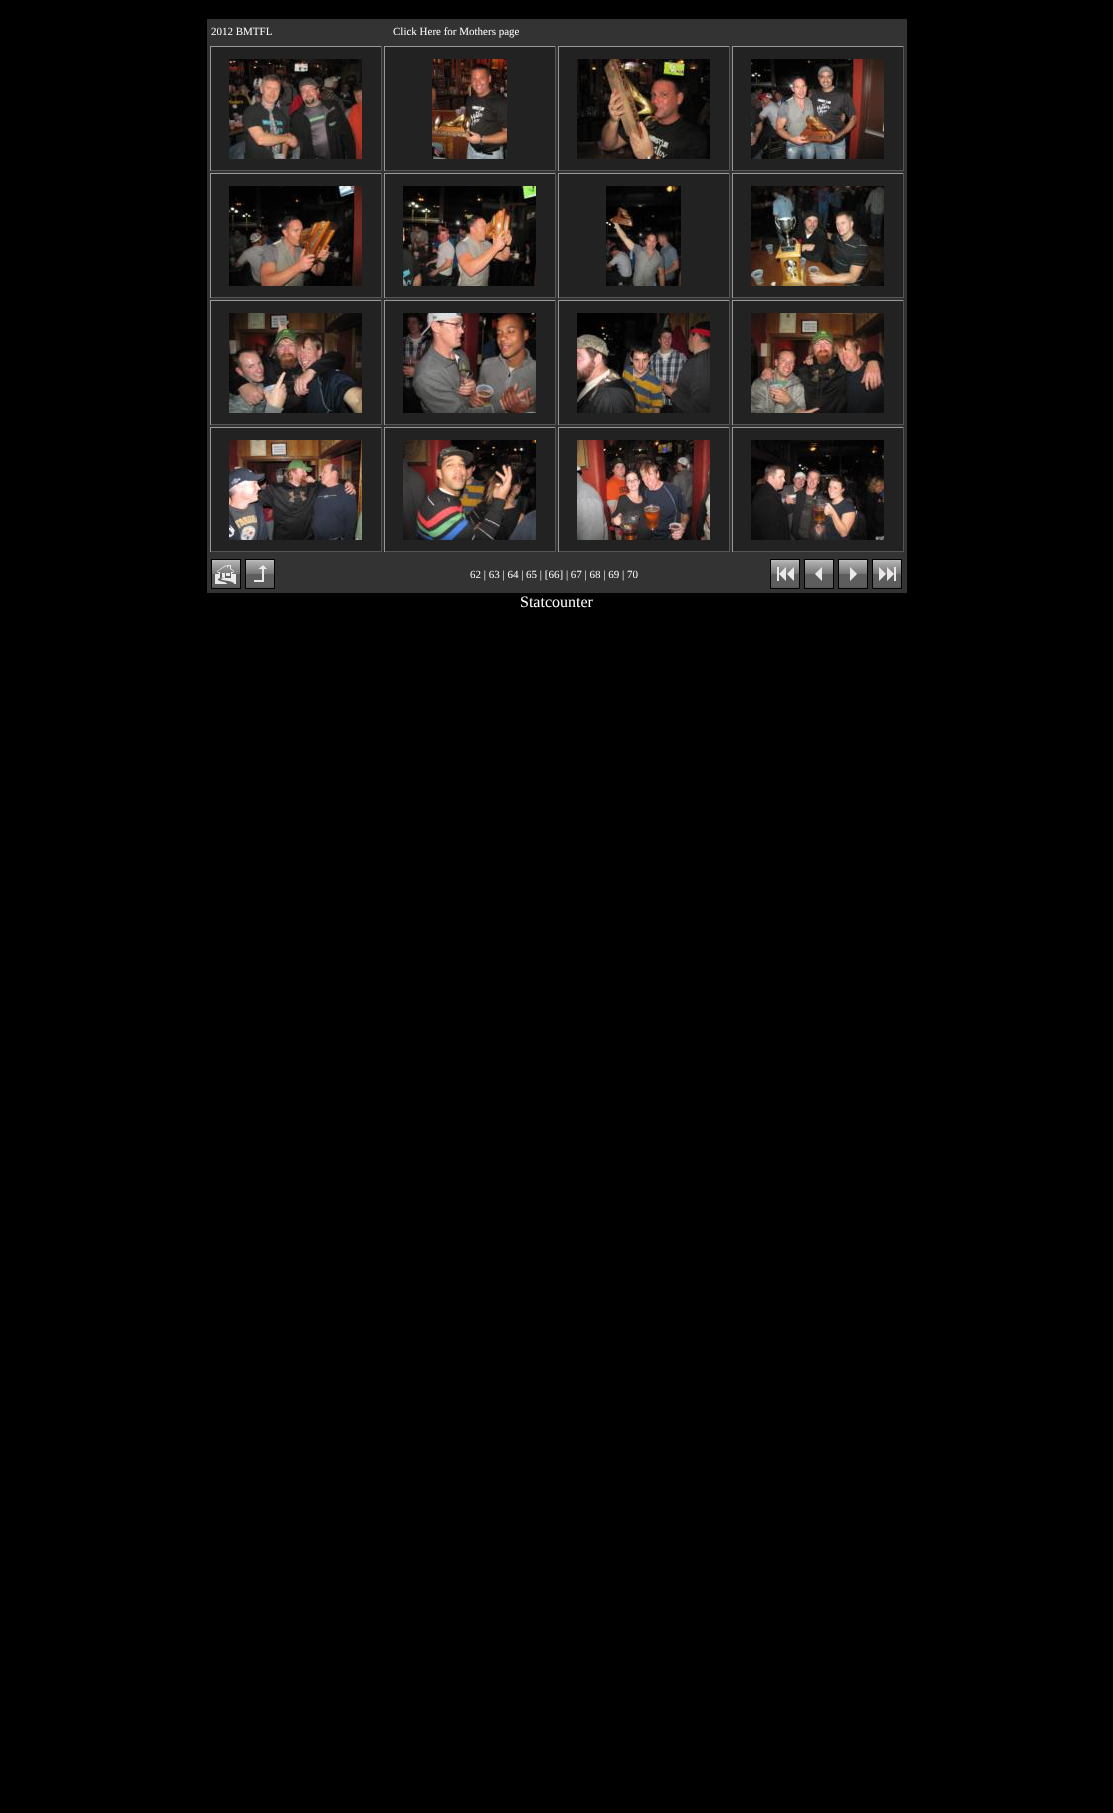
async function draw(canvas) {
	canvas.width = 1113;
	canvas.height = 1813;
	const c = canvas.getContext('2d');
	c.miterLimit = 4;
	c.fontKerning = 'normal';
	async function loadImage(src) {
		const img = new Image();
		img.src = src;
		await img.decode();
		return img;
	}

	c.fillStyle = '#000';
	c.fillRect(0, 0, 1113, 1813);
	c.fillStyle = '#333';
	c.fillRect(207, 19, 700, 574);
	c.font = '11px Liberation Serif';
	c.fillStyle = '#fff';
	c.fillText('2012 BMTFL', 211, 35);
	c.fillText('Click Here for Mothers page', 393, 35);
	for (const [x, y, w, h, color] of [
		[211, 47, 170, 123, '#222'],
		[210, 46, 172, 1, '#999'],
		[381, 46, 1, 125, '#555'],
		[210, 170, 172, 1, '#555'],
		[210, 46, 1, 125, '#999'],
	]) {
		c.fillStyle = color;
		c.fillRect(x, y, w, h);
	}
	c.drawImage(await loadImage('img1.png'), 229, 59, 133, 100);
	for (const [x, y, w, h, color] of [
		[385, 47, 170, 123, '#222'],
		[384, 46, 172, 1, '#999'],
		[555, 46, 1, 125, '#555'],
		[384, 170, 172, 1, '#555'],
		[384, 46, 1, 125, '#999'],
	]) {
		c.fillStyle = color;
		c.fillRect(x, y, w, h);
	}
	c.drawImage(await loadImage('img2.png'), 432, 59, 75, 100);
	for (const [x, y, w, h, color] of [
		[559, 47, 170, 123, '#222'],
		[558, 46, 172, 1, '#999'],
		[729, 46, 1, 125, '#555'],
		[558, 170, 172, 1, '#555'],
		[558, 46, 1, 125, '#999'],
	]) {
		c.fillStyle = color;
		c.fillRect(x, y, w, h);
	}
	c.drawImage(await loadImage('img3.png'), 577, 59, 133, 100);
	for (const [x, y, w, h, color] of [
		[733, 47, 170, 123, '#222'],
		[732, 46, 172, 1, '#999'],
		[903, 46, 1, 125, '#555'],
		[732, 170, 172, 1, '#555'],
		[732, 46, 1, 125, '#999'],
	]) {
		c.fillStyle = color;
		c.fillRect(x, y, w, h);
	}
	c.drawImage(await loadImage('img4.png'), 751, 59, 133, 100);
	for (const [x, y, w, h, color] of [
		[211, 174, 170, 123, '#222'],
		[210, 173, 172, 1, '#999'],
		[381, 173, 1, 125, '#555'],
		[210, 297, 172, 1, '#555'],
		[210, 173, 1, 125, '#999'],
	]) {
		c.fillStyle = color;
		c.fillRect(x, y, w, h);
	}
	c.drawImage(await loadImage('img5.png'), 229, 186, 133, 100);
	for (const [x, y, w, h, color] of [
		[385, 174, 170, 123, '#222'],
		[384, 173, 172, 1, '#999'],
		[555, 173, 1, 125, '#555'],
		[384, 297, 172, 1, '#555'],
		[384, 173, 1, 125, '#999'],
	]) {
		c.fillStyle = color;
		c.fillRect(x, y, w, h);
	}
	c.drawImage(await loadImage('img6.png'), 403, 186, 133, 100);
	for (const [x, y, w, h, color] of [
		[559, 174, 170, 123, '#222'],
		[558, 173, 172, 1, '#999'],
		[729, 173, 1, 125, '#555'],
		[558, 297, 172, 1, '#555'],
		[558, 173, 1, 125, '#999'],
	]) {
		c.fillStyle = color;
		c.fillRect(x, y, w, h);
	}
	c.drawImage(await loadImage('img7.png'), 606, 186, 75, 100);
	for (const [x, y, w, h, color] of [
		[733, 174, 170, 123, '#222'],
		[732, 173, 172, 1, '#999'],
		[903, 173, 1, 125, '#555'],
		[732, 297, 172, 1, '#555'],
		[732, 173, 1, 125, '#999'],
	]) {
		c.fillStyle = color;
		c.fillRect(x, y, w, h);
	}
	c.drawImage(await loadImage('img8.png'), 751, 186, 133, 100);
	for (const [x, y, w, h, color] of [
		[211, 301, 170, 123, '#222'],
		[210, 300, 172, 1, '#999'],
		[381, 300, 1, 125, '#555'],
		[210, 424, 172, 1, '#555'],
		[210, 300, 1, 125, '#999'],
	]) {
		c.fillStyle = color;
		c.fillRect(x, y, w, h);
	}
	c.drawImage(await loadImage('img9.png'), 229, 313, 133, 100);
	for (const [x, y, w, h, color] of [
		[385, 301, 170, 123, '#222'],
		[384, 300, 172, 1, '#999'],
		[555, 300, 1, 125, '#555'],
		[384, 424, 172, 1, '#555'],
		[384, 300, 1, 125, '#999'],
	]) {
		c.fillStyle = color;
		c.fillRect(x, y, w, h);
	}
	c.drawImage(await loadImage('img10.png'), 403, 313, 133, 100);
	for (const [x, y, w, h, color] of [
		[559, 301, 170, 123, '#222'],
		[558, 300, 172, 1, '#999'],
		[729, 300, 1, 125, '#555'],
		[558, 424, 172, 1, '#555'],
		[558, 300, 1, 125, '#999'],
	]) {
		c.fillStyle = color;
		c.fillRect(x, y, w, h);
	}
	c.drawImage(await loadImage('img11.png'), 577, 313, 133, 100);
	for (const [x, y, w, h, color] of [
		[733, 301, 170, 123, '#222'],
		[732, 300, 172, 1, '#999'],
		[903, 300, 1, 125, '#555'],
		[732, 424, 172, 1, '#555'],
		[732, 300, 1, 125, '#999'],
	]) {
		c.fillStyle = color;
		c.fillRect(x, y, w, h);
	}
	c.drawImage(await loadImage('img12.png'), 751, 313, 133, 100);
	for (const [x, y, w, h, color] of [
		[211, 428, 170, 123, '#222'],
		[210, 427, 172, 1, '#999'],
		[381, 427, 1, 125, '#555'],
		[210, 551, 172, 1, '#555'],
		[210, 427, 1, 125, '#999'],
	]) {
		c.fillStyle = color;
		c.fillRect(x, y, w, h);
	}
	c.drawImage(await loadImage('img13.png'), 229, 440, 133, 100);
	for (const [x, y, w, h, color] of [
		[385, 428, 170, 123, '#222'],
		[384, 427, 172, 1, '#999'],
		[555, 427, 1, 125, '#555'],
		[384, 551, 172, 1, '#555'],
		[384, 427, 1, 125, '#999'],
	]) {
		c.fillStyle = color;
		c.fillRect(x, y, w, h);
	}
	c.drawImage(await loadImage('img14.png'), 403, 440, 133, 100);
	for (const [x, y, w, h, color] of [
		[559, 428, 170, 123, '#222'],
		[558, 427, 172, 1, '#999'],
		[729, 427, 1, 125, '#555'],
		[558, 551, 172, 1, '#555'],
		[558, 427, 1, 125, '#999'],
	]) {
		c.fillStyle = color;
		c.fillRect(x, y, w, h);
	}
	c.drawImage(await loadImage('img15.png'), 577, 440, 133, 100);
	for (const [x, y, w, h, color] of [
		[733, 428, 170, 123, '#222'],
		[732, 427, 172, 1, '#999'],
		[903, 427, 1, 125, '#555'],
		[732, 551, 172, 1, '#555'],
		[732, 427, 1, 125, '#999'],
	]) {
		c.fillStyle = color;
		c.fillRect(x, y, w, h);
	}
	c.drawImage(await loadImage('img16.png'), 751, 440, 133, 100);
	c.drawImage(await loadImage('img17.png'), 211, 559, 30, 30);
	c.drawImage(await loadImage('img18.png'), 245, 559, 30, 30);
	c.fillStyle = '#fff';
	c.fillText('62 | 63 | 64 | 65 | [66] | 67 | 68 | 69 | 70', 470, 578);
	c.drawImage(await loadImage('img19.png'), 770, 559, 30, 30);
	c.drawImage(await loadImage('img20.png'), 804, 559, 30, 30);
	c.drawImage(await loadImage('img21.png'), 838, 559, 30, 30);
	c.drawImage(await loadImage('img22.png'), 872, 559, 30, 30);
	c.font = '16px Liberation Serif';
	c.fillText('Statcounter', 520, 607);
}

draw(document.querySelector('canvas'));
